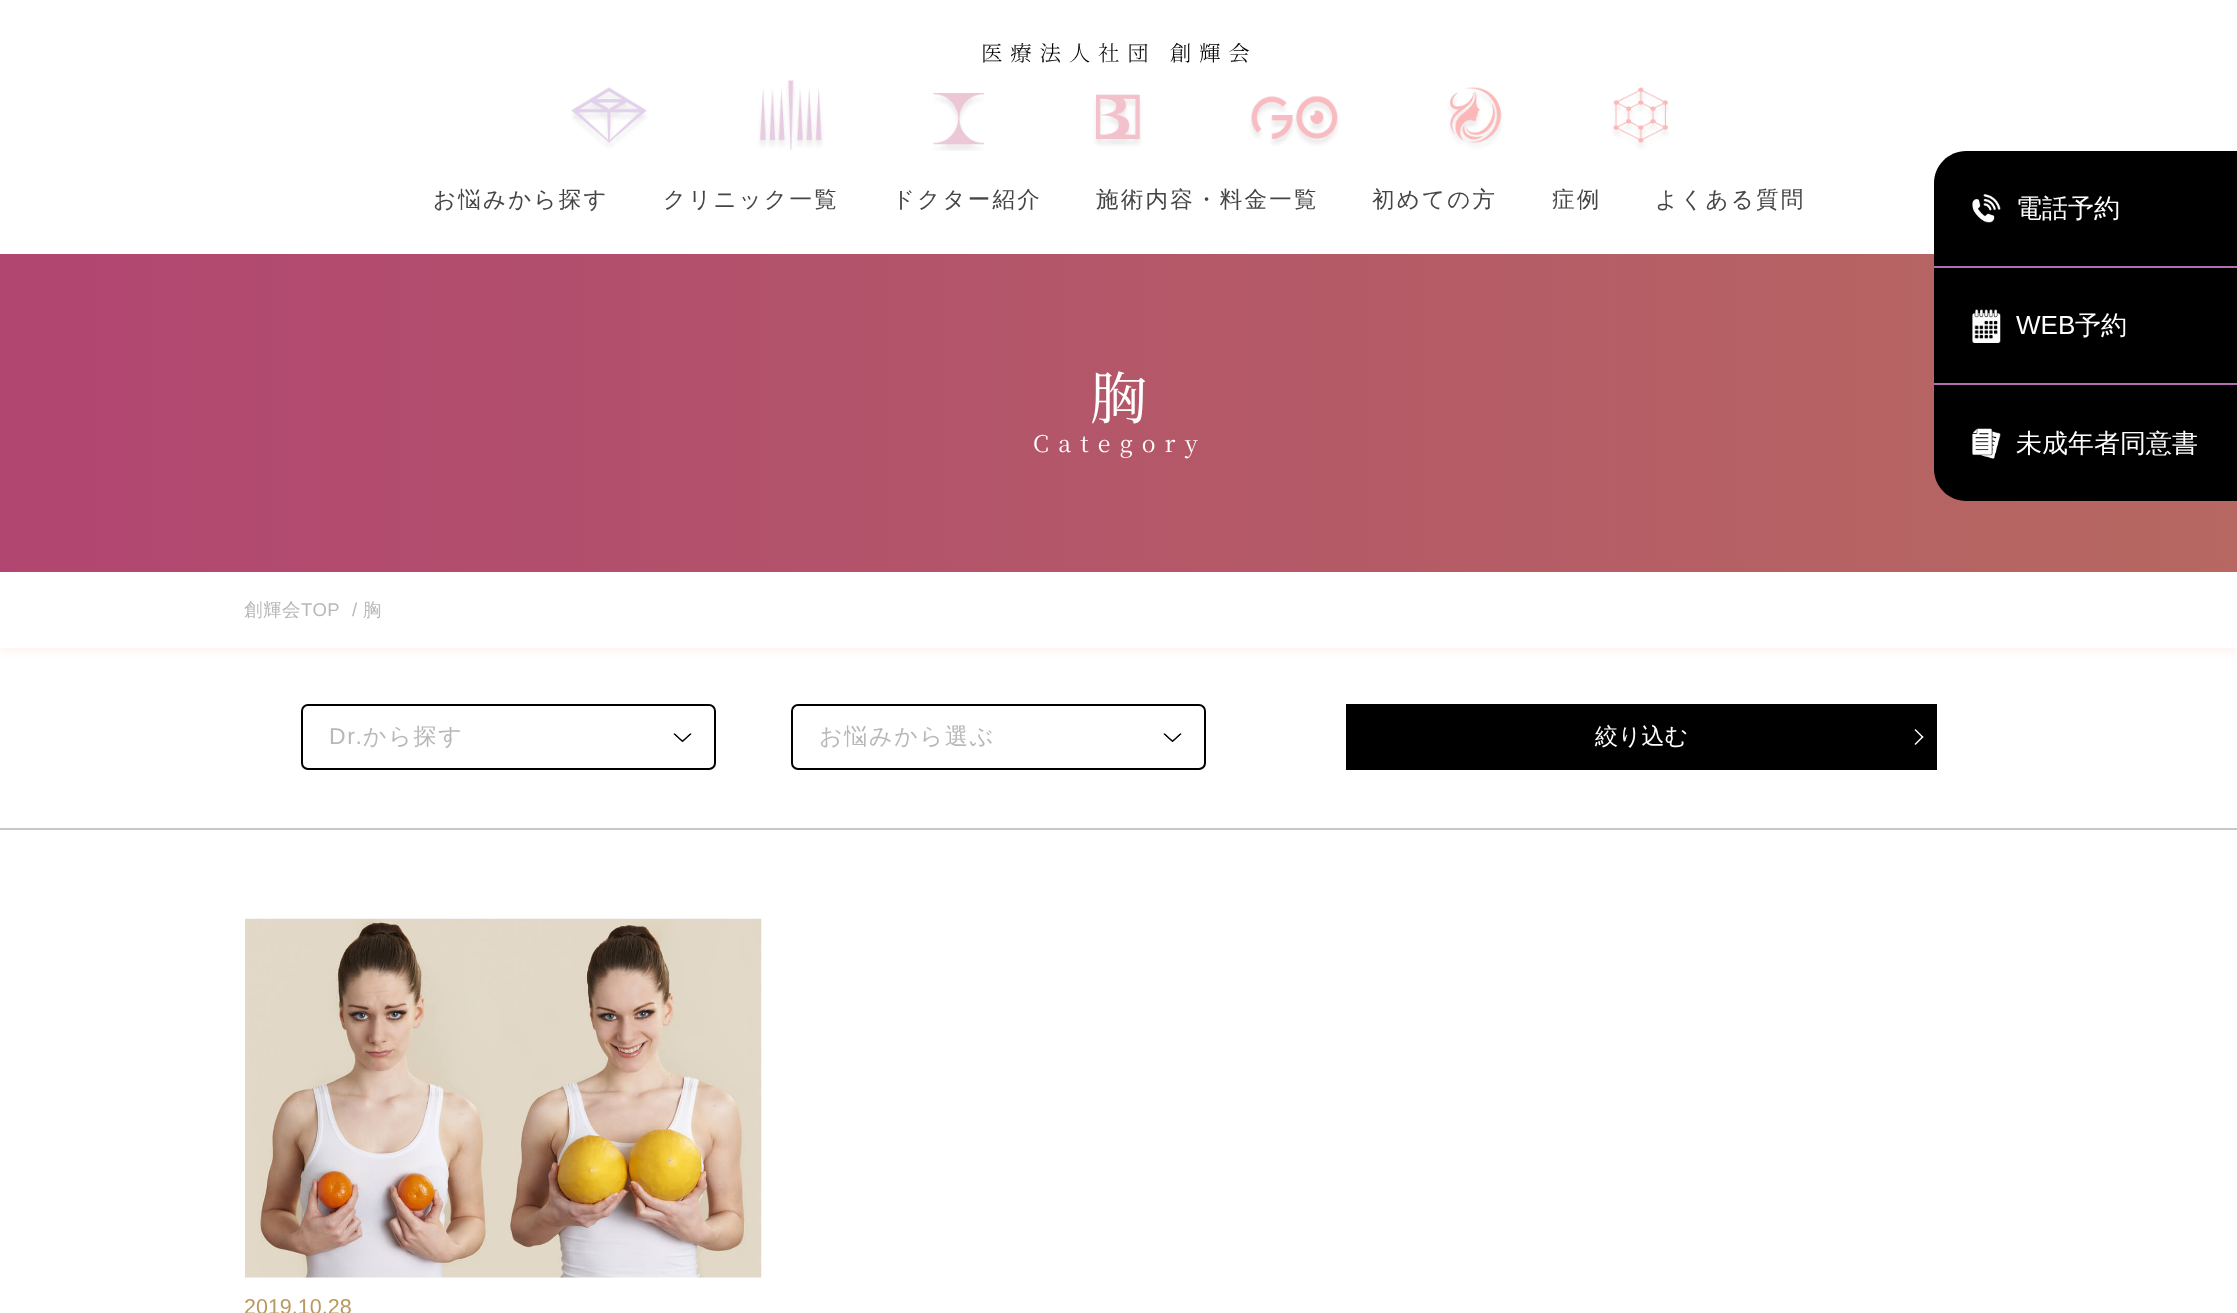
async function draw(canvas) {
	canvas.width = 2237;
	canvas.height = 1313;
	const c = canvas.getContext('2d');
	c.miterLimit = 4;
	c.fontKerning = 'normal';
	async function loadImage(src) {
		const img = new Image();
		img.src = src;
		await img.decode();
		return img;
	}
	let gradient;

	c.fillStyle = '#fff';
	c.fillRect(0, 0, 2237, 1313);
	c.letterSpacing = '7.75px';
	c.font = '300 21.5px Noto Serif JP';
	c.fillStyle = '#000';
	c.fillText('医療法人社団 創輝会', 981, 61);
	c.drawImage(await loadImage('img1.png'), 571, 80, 1098, 71);
	c.letterSpacing = '2.25px';
	c.font = '500 22.5px WenQuanYi Zen Hei';
	c.fillStyle = '#454545';
	for (const [text, x, y] of [
		['お悩みから探す', 433, 207],
		['クリニック一覧', 663, 207],
		['ドクター紹介', 892, 207],
		['施術内容・料金一覧', 1096, 207],
		['初めての方', 1372, 207],
		['症例', 1552, 207],
		['よくある質問', 1655, 207],
	]) {
		c.fillText(text, x, y);
	}
	gradient = c.createLinearGradient(0, 413, 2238, 413);
	gradient.addColorStop(0, '#b14671');
	gradient.addColorStop(1, '#b76861');
	c.fillStyle = gradient;
	c.fillRect(0, 254, 2237, 318);
	c.letterSpacing = '1px';
	c.font = '57px Noto Serif JP';
	c.fillStyle = '#fff';
	c.fillText('胸', 1090, 419);
	c.letterSpacing = '9.25px';
	c.font = '23px Noto Serif JP';
	c.fillText('Category', 1033, 452);
	c.fillStyle = '#000';
	c.beginPath();
	c.moveTo(1966, 151);
	c.lineTo(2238, 151);
	c.lineTo(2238, 501);
	c.lineTo(1966, 501);
	c.bezierCurveTo(1948.5, 501, 1934, 486.5, 1934, 469);
	c.lineTo(1934, 183);
	c.bezierCurveTo(1934, 165.5, 1948.5, 151, 1966, 151);
	c.closePath();
	c.fill();
	c.drawImage(await loadImage('img2.png'), 1972, 194, 29, 29);
	c.letterSpacing = '0px';
	c.font = '500 26px WenQuanYi Zen Hei';
	c.fillStyle = '#fff';
	c.fillText('電話予約', 2016, 217);
	c.fillStyle = '#b56eb6';
	c.fillRect(1934, 266, 303, 2);
	c.fillRect(1934, 383, 303, 2);
	c.drawImage(await loadImage('img3.png'), 1972, 309, 29, 34);
	c.font = '26px Liberation Sans';
	c.fillStyle = '#fff';
	c.fillText('WEB', 2016, 334);
	c.font = '500 26px WenQuanYi Zen Hei';
	c.fillText('予約', 2075, 334);
	c.drawImage(await loadImage('img4.png'), 1972, 428, 29, 31);
	c.fillText('未成年者同意書', 2016, 452);
	c.save();
	c.beginPath();
	c.moveTo(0, 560);
	c.lineTo(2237, 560);
	c.lineTo(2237, 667);
	c.lineTo(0, 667);
	c.closePath();
	c.moveTo(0, 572);
	c.lineTo(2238, 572);
	c.lineTo(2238, 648);
	c.lineTo(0, 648);
	c.closePath();
	c.clip('evenodd');
	c.fillStyle = '#ff635d1a';
	c.filter = 'blur(5px)';
	c.beginPath();
	c.rect(0, 576, 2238, 75);
	c.fill();
	c.filter = 'none';
	c.restore();
	c.letterSpacing = '0.5px';
	c.font = '500 18.5px WenQuanYi Zen Hei';
	c.fillStyle = '#b8b8b8';
	c.fillText('創輝会', 244, 616);
	c.font = '18.5px Liberation Sans';
	c.fillText('TOP', 301, 616);
	c.fillText('/', 352, 616);
	c.font = '500 18.5px WenQuanYi Zen Hei';
	c.fillText('胸', 363, 616);
	c.fillStyle = '#c7c7c7';
	c.fillRect(0, 828, 2237, 2);
	c.drawImage(await loadImage('img5.png'), 673, 733, 19, 9);
	c.beginPath();
	c.roundRect(302, 705, 413, 64, 6);
	c.strokeStyle = '#000';
	c.lineWidth = 2;
	c.stroke();
	c.letterSpacing = '1.75px';
	c.font = '23px Liberation Sans';
	c.fillStyle = '#b8b8b8';
	c.fillText('Dr.', 329, 744);
	c.font = '500 23px WenQuanYi Zen Hei';
	c.fillText('から探す', 363, 744);
	c.drawImage(await loadImage('img5.png'), 1163, 733, 19, 9);
	c.beginPath();
	c.roundRect(792, 705, 413, 64, 6);
	c.stroke();
	c.fillText('お悩みから選ぶ', 819, 744);
	c.fillStyle = '#000';
	c.fillRect(1346, 704, 591, 66);
	c.letterSpacing = '0px';
	c.fillStyle = '#fff';
	c.fillText('絞り込む', 1595, 744);
	c.beginPath();
	c.moveTo(1914.5, 730);
	c.lineTo(1915.5, 729);
	c.lineTo(1923.5, 737);
	c.lineTo(1922.5, 738);
	c.closePath();
	c.fill();
	c.beginPath();
	c.moveTo(1914.5, 744);
	c.lineTo(1922.5, 736);
	c.lineTo(1923.5, 737);
	c.lineTo(1915.5, 745);
	c.closePath();
	c.fill();
	c.drawImage(await loadImage('img6.png'), 245, 918, 517, 360);
	c.font = '21.5px Liberation Sans';
	c.fillStyle = '#b8995f';
	c.fillText('2019.10.28', 244, 1314);
}

draw(document.querySelector('canvas'));
